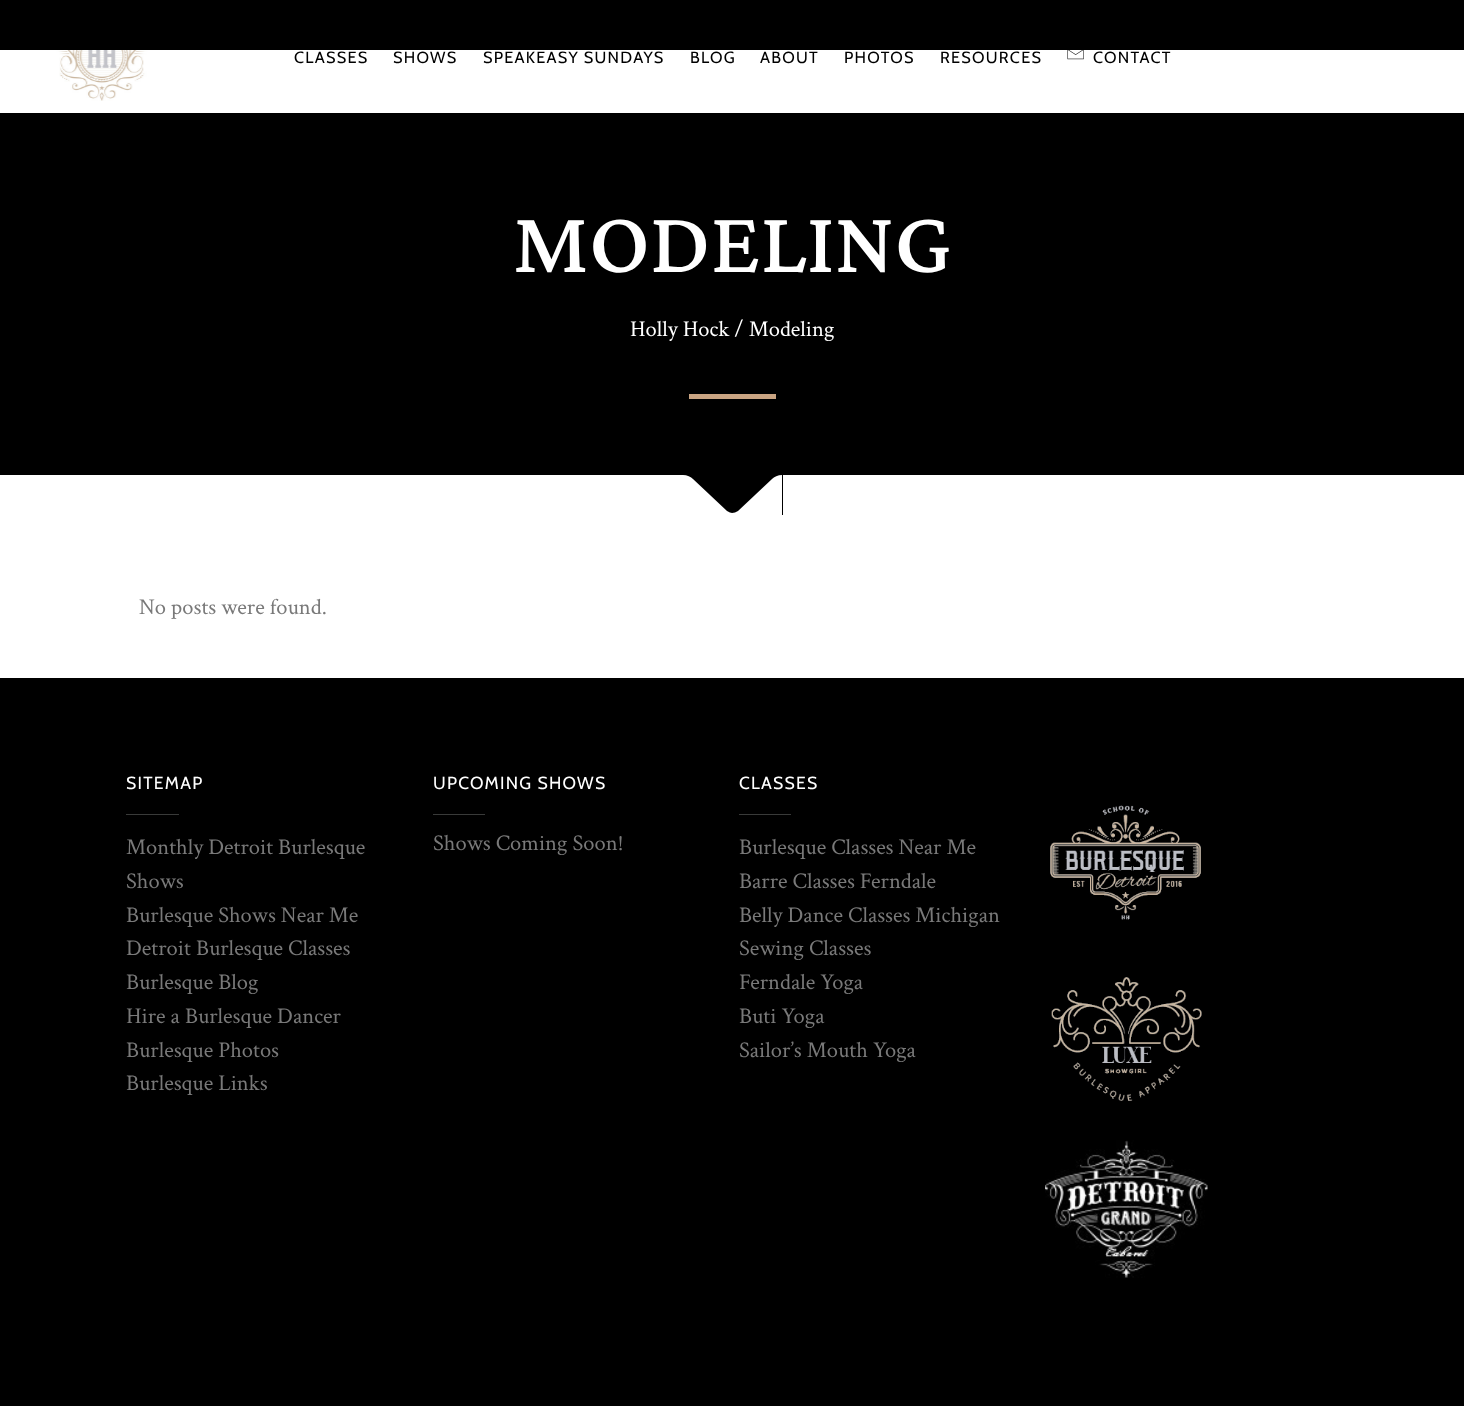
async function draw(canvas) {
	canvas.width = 1464;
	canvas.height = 1406;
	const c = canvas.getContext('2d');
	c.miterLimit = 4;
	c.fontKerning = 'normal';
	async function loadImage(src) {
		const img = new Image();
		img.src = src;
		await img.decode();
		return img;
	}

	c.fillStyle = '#fff';
	c.fillRect(0, 0, 1464, 1406);
	c.fillStyle = '#000';
	c.fillRect(0, 0, 1464, 50);
	c.drawImage(await loadImage('img1.png'), 51, 50, 101, 51);
	c.letterSpacing = '1.25px';
	c.font = '16.25px Cabin';
	for (const [text, x, y] of [
		['CLASSES', 294, 63],
		['SHOWS', 393, 63],
		['SPEAKEASY SUNDAYS', 483, 63],
		['BLOG', 690, 63],
		['ABOUT', 760, 63],
		['PHOTOS', 844, 63],
		['RESOURCES', 940, 63],
	]) {
		c.fillText(text, x, y);
	}
	c.drawImage(await loadImage('img2.png'), 1067, 50, 17, 10);
	c.fillText('CONTACT', 1093, 63);
	c.fillRect(0, 113, 1464, 402);
	c.letterSpacing = '0px';
	c.font = '112.5px Lateef';
	c.fillStyle = '#fff';
	c.fillText('MODELING', 513, 272);
	c.font = '22.5px Crimson Text';
	c.fillText('Holly Hock / Modeling', 630, 336);
	c.fillStyle = '#c9a482';
	c.fillRect(689, 394, 87, 5);
	c.fillStyle = '#fff';
	c.fillRect(0, 475, 683, 40);
	c.save();
	c.beginPath();
	c.rect(683, 475, 100, 40);
	c.clip();
	c.beginPath();
	c.moveTo(782, 515);
	c.lineTo(782, 475);
	c.bezierCurveTo(778, 475, 774, 477, 772, 479);
	c.lineTo(738, 511);
	c.bezierCurveTo(736, 512, 734, 513, 732, 513);
	c.bezierCurveTo(731, 513, 729, 512, 727, 511);
	c.lineTo(693, 479);
	c.bezierCurveTo(691, 477, 687, 475, 683, 475);
	c.lineTo(682, 475);
	c.lineTo(682, 515);
	c.closePath();
	c.fill();
	c.restore();
	c.fillRect(783, 475, 681, 40);
	c.fillStyle = '#797979';
	c.fillText('No posts were found.', 139, 614);
	c.fillStyle = '#000';
	c.fillRect(0, 678, 1464, 728);
	c.letterSpacing = '1.25px';
	c.font = '17.5px Cabin';
	c.fillStyle = '#fff';
	c.fillText('SITEMAP', 126, 789);
	c.fillStyle = '#393a39';
	c.fillRect(126, 814, 53, 1);
	c.letterSpacing = '0px';
	c.font = '22.5px Crimson Text';
	c.fillStyle = '#797979';
	for (const [text, x, y] of [
		['Monthly Detroit Burlesque', 126, 854],
		['Shows', 126, 888],
		['Burlesque Shows Near Me', 126, 922],
		['Detroit Burlesque Classes', 126, 955],
		['Burlesque Blog', 126, 989],
		['Hire a Burlesque Dancer', 126, 1023],
		['Burlesque Photos', 126, 1057],
		['Burlesque Links', 126, 1090],
	]) {
		c.fillText(text, x, y);
	}
	c.letterSpacing = '1.25px';
	c.font = '17.5px Cabin';
	c.fillStyle = '#fff';
	c.fillText('UPCOMING SHOWS', 433, 789);
	c.fillStyle = '#393a39';
	c.fillRect(433, 814, 52, 1);
	c.letterSpacing = '0px';
	c.font = '22.5px Crimson Text';
	c.fillStyle = '#797979';
	c.fillText('Shows Coming Soon!', 433, 850);
	c.letterSpacing = '1.25px';
	c.font = '17.5px Cabin';
	c.fillStyle = '#fff';
	c.fillText('CLASSES', 739, 789);
	c.fillStyle = '#393a39';
	c.fillRect(739, 814, 52, 1);
	c.letterSpacing = '0px';
	c.font = '22.5px Crimson Text';
	c.fillStyle = '#797979';
	for (const [text, x, y] of [
		['Burlesque Classes Near Me', 739, 854],
		['Barre Classes Ferndale', 739, 888],
		['Belly Dance Classes Michigan', 739, 922],
		['Sewing Classes', 739, 955],
		['Ferndale Yoga', 739, 989],
		['Buti Yoga', 739, 1023],
		['Sailor’s Mouth Yoga', 739, 1057],
	]) {
		c.fillText(text, x, y);
	}
	c.drawImage(await loadImage('img3.png'), 1050, 805, 151, 115);
	c.drawImage(await loadImage('img4.png'), 1051, 977, 151, 124);
	c.drawImage(await loadImage('img5.png'), 1045, 1140, 163, 138);
}

draw(document.querySelector('canvas'));
